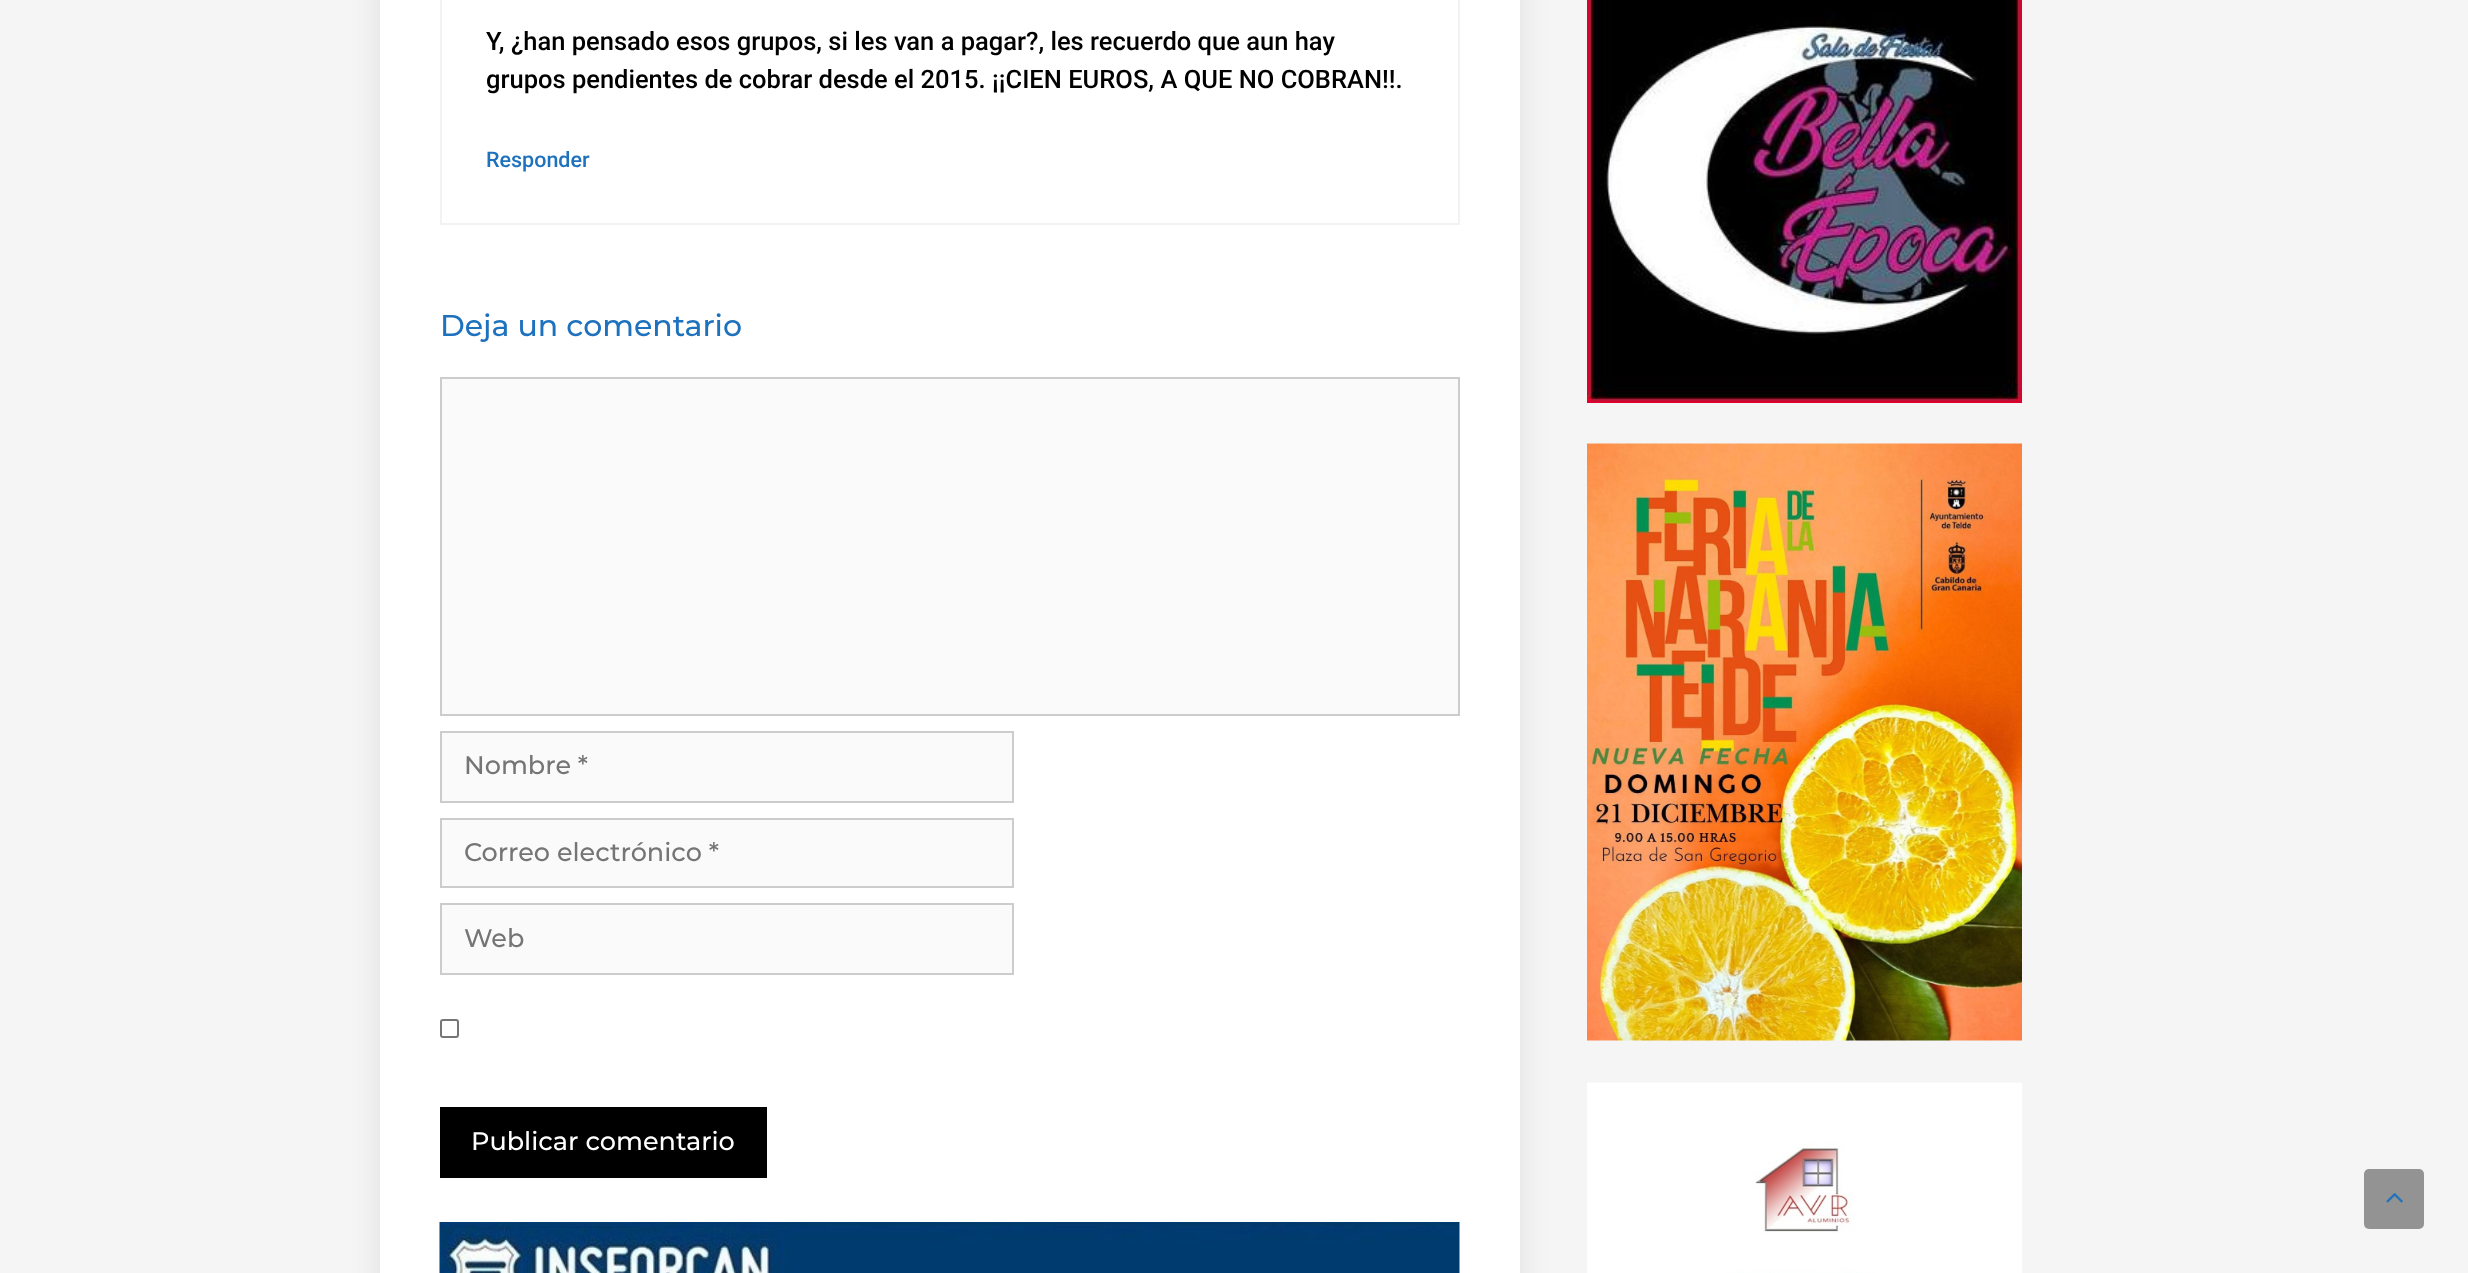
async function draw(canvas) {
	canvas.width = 2468;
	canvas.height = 1273;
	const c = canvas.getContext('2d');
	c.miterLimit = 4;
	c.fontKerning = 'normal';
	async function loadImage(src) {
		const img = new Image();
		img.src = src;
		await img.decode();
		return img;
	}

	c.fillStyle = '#f5f5f5';
	c.fillRect(0, 0, 2468, 1273);
	c.fillStyle = '#00000017';
	c.filter = 'blur(15px)';
	c.beginPath();
	c.rect(380, -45, 1140, 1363);
	c.fill();
	c.filter = 'none';
	c.fillStyle = '#fff';
	c.fillRect(380, 0, 1140, 1273);
	c.strokeStyle = '#f2f2f2';
	c.lineWidth = 2;
	c.strokeRect(441, -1, 1018, 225);
	c.font = '500 25.5px Roboto';
	c.fillStyle = '#000';
	c.fillText('Y, ¿han pensado esos grupos, si les van a pagar?, les recuerdo que aun hay', 486, 50);
	c.fillText('grupos pendientes de cobrar desde el 2015. ¡¡CIEN EUROS, A QUE NO COBRAN!!.', 486, 88);
	c.font = '500 21.5px Roboto';
	c.fillStyle = '#1e72bd';
	c.fillText('Responder', 486, 167);
	c.font = '500 30px Montserrat';
	c.fillText('Deja un comentario', 440, 336);
	c.fillStyle = '#fafafa';
	c.beginPath();
	c.rect(441, 378, 1018, 337);
	c.fill();
	c.strokeStyle = '#ccc';
	c.stroke();
	c.beginPath();
	c.rect(441, 732, 572, 70);
	c.fill();
	c.stroke();
	c.font = '500 25.5px Montserrat';
	c.fillStyle = '#757575';
	c.fillText('Nombre *', 464, 774);
	c.fillStyle = '#fafafa';
	c.beginPath();
	c.rect(441, 819, 572, 68);
	c.fill();
	c.stroke();
	c.fillStyle = '#757575';
	c.fillText('Correo electrónico *', 464, 861);
	c.fillStyle = '#fafafa';
	c.beginPath();
	c.rect(441, 904, 572, 70);
	c.fill();
	c.stroke();
	c.fillStyle = '#757575';
	c.fillText('Web', 464, 947);
	c.beginPath();
	c.roundRect(441, 1020, 17, 17, 2);
	c.strokeStyle = '#767676';
	c.stroke();
	c.fillStyle = '#000';
	c.fillRect(440, 1107, 327, 71);
	c.fillStyle = '#fff';
	c.fillText('Publicar comentario', 471, 1150);
	c.drawImage(await loadImage('img1.png'), 439, 1222, 1021, 51);
	c.drawImage(await loadImage('img2.png'), 1587, 0, 435, 403);
	c.drawImage(await loadImage('img3.png'), 1587, 443, 435, 598);
	c.drawImage(await loadImage('img4.png'), 1587, 1082, 435, 191);
	c.fillStyle = '#939393';
	c.beginPath();
	c.roundRect(2364, 1169, 60, 60, 5);
	c.fill();
	c.drawImage(await loadImage('img5.png'), 2386, 1193, 17, 10);
}

draw(document.querySelector('canvas'));
